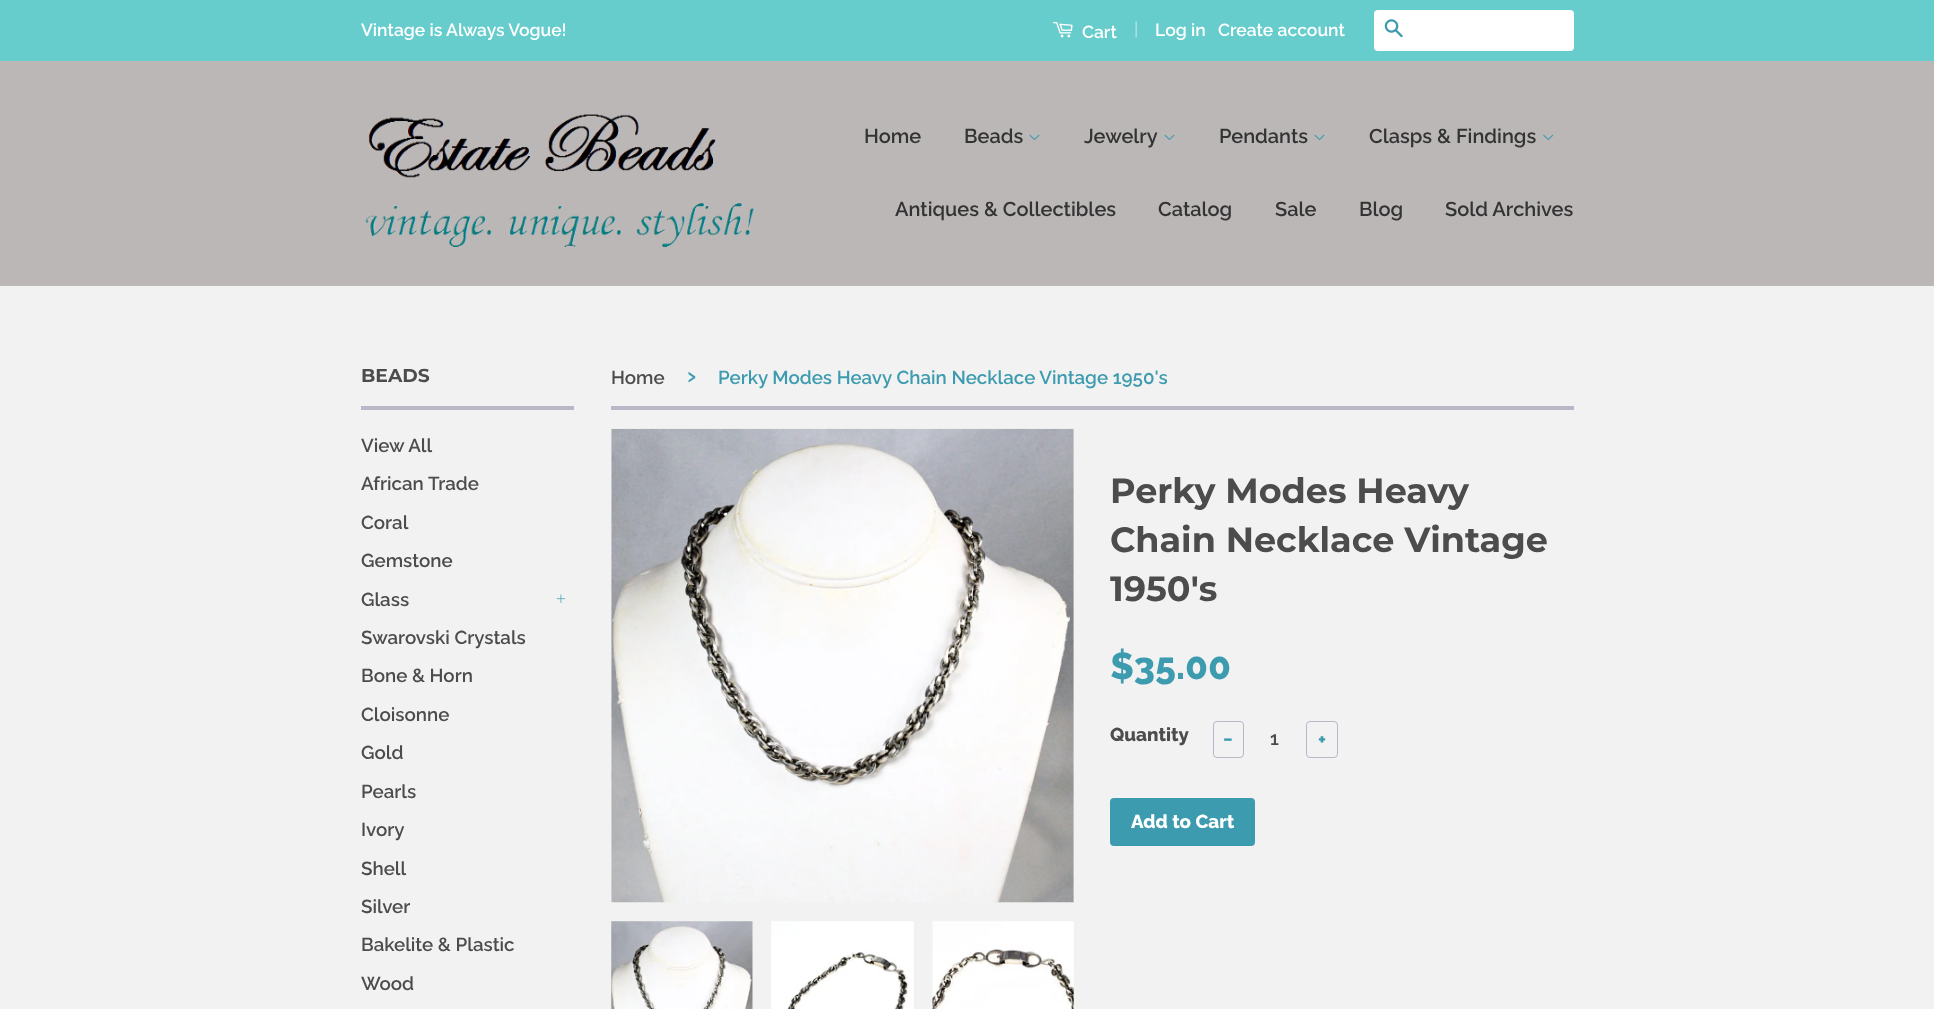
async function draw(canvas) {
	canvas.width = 1934;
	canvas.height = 1009;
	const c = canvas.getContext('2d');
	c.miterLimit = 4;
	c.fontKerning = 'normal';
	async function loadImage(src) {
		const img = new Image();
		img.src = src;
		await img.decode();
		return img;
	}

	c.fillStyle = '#f2f2f2';
	c.fillRect(0, 0, 1934, 1009);
	c.fillStyle = '#6cc';
	c.fillRect(0, 0, 1934, 61);
	c.font = '600 17.5px Raleway';
	c.fillStyle = '#fff';
	c.fillText('Vintage is Always Vogue!', 361, 36);
	c.drawImage(await loadImage('img1.png'), 1053, 22, 20, 16);
	c.fillText('Cart', 1082, 38);
	c.fillStyle = '#a3e0e0';
	c.fillText('|', 1134, 35);
	c.fillStyle = '#fff';
	c.fillText('Log in', 1155, 36);
	c.fillText('Create account', 1218, 36);
	c.beginPath();
	c.roundRect(1374, 10, 200, 41, 4);
	c.fill();
	c.drawImage(await loadImage('img2.png'), 1384, 19, 19, 19);
	c.fillStyle = '#bbb7b7';
	c.fillRect(0, 61, 1934, 225);
	c.drawImage(await loadImage('img3.png'), 365, 114, 390, 133);
	c.font = '600 20px Raleway';
	c.fillStyle = '#333';
	c.fillText('Home', 864, 143);
	c.fillText('Beads', 964, 143);
	c.drawImage(await loadImage('img4.png'), 1029, 134, 11, 7);
	c.fillText('Jewelry', 1084, 143);
	c.drawImage(await loadImage('img4.png'), 1164, 134, 11, 7);
	c.fillText('Pendants', 1219, 143);
	c.drawImage(await loadImage('img4.png'), 1314, 134, 11, 7);
	c.fillText('Clasps & Findings', 1369, 143);
	c.drawImage(await loadImage('img5.png'), 1543, 134, 11, 7);
	for (const [text, x, y] of [
		['Antiques & Collectibles', 895, 216],
		['Catalog', 1158, 216],
		['Sale', 1275, 216],
		['Blog', 1359, 216],
		['Sold Archives', 1445, 216],
	]) {
		c.fillText(text, x, y);
	}
	c.fillStyle = '#bab5c7';
	c.fillRect(361, 406, 213, 4);
	c.font = '100 18.75px Montserrat';
	c.fillStyle = '#4c4c4c';
	c.fillText('BEADS', 361, 382);
	c.font = '600 18.75px Raleway';
	for (const [text, x, y] of [
		['View All', 361, 452],
		['African Trade', 361, 490],
		['Coral', 361, 529],
		['Gemstone', 361, 567],
		['Glass', 361, 606],
	]) {
		c.fillText(text, x, y);
	}
	c.drawImage(await loadImage('img6.png'), 556, 594, 10, 9);
	for (const [text, x, y] of [
		['Swarovski Crystals', 361, 644],
		['Bone & Horn', 361, 682],
		['Cloisonne', 361, 721],
		['Gold', 361, 759],
		['Pearls', 361, 798],
		['Ivory', 361, 836],
		['Shell', 361, 875],
		['Silver', 361, 913],
		['Bakelite & Plastic', 361, 951],
		['Wood', 361, 990],
	]) {
		c.fillText(text, x, y);
	}
	c.fillStyle = '#bab5c7';
	c.fillRect(611, 406, 963, 4);
	c.fillStyle = '#4c4c4c';
	c.fillText('Home', 611, 384);
	c.font = '600 26px Raleway';
	c.fillStyle = '#3d9baf';
	c.fillText('›', 687, 384);
	c.font = '600 18.75px Raleway';
	c.fillText('Perky Modes Heavy Chain Necklace Vintage 1950\'s', 718, 384);
	c.drawImage(await loadImage('img7.png'), 611, 428, 463, 475);
	c.font = '100 35px Montserrat';
	c.fillStyle = '#4c4c4c';
	for (const [text, x, y] of [
		['Perky Modes Heavy', 1110, 503],
		['Chain Necklace Vintage', 1110, 552],
		['1950\'s', 1110, 601],
	]) {
		c.fillText(text, x, y);
	}
	c.font = '800 37.5px Raleway';
	c.fillStyle = '#3d9baf';
	c.fillText('$35.00', 1110, 679);
	c.font = '800 18.75px Raleway';
	c.fillStyle = '#4c4c4c';
	c.fillText('Quantity', 1110, 741);
	c.beginPath();
	c.roundRect(1213.5, 721.5, 30, 36, 3.5);
	c.strokeStyle = '#bab5c7';
	c.stroke();
	c.fillStyle = '#3d9baf';
	c.fillText('−', 1223, 746);
	c.font = '600 18.75px Raleway';
	c.fillStyle = '#4c4c4c';
	c.fillText('1', 1270, 745);
	c.beginPath();
	c.roundRect(1306.5, 721.5, 31, 36, 3.5);
	c.stroke();
	c.font = '800 18.75px Raleway';
	c.fillStyle = '#3d9baf';
	c.fillText('+', 1318, 746);
	c.beginPath();
	c.roundRect(1110, 798, 145, 48, 4);
	c.fill();
	c.fillStyle = '#fff';
	c.fillText('Add to Cart', 1131, 828);
	c.drawImage(await loadImage('img8.png'), 611, 921, 142, 88);
	c.drawImage(await loadImage('img9.png'), 771, 921, 143, 88);
	c.drawImage(await loadImage('img10.png'), 932, 921, 142, 88);
}

draw(document.querySelector('canvas'));
